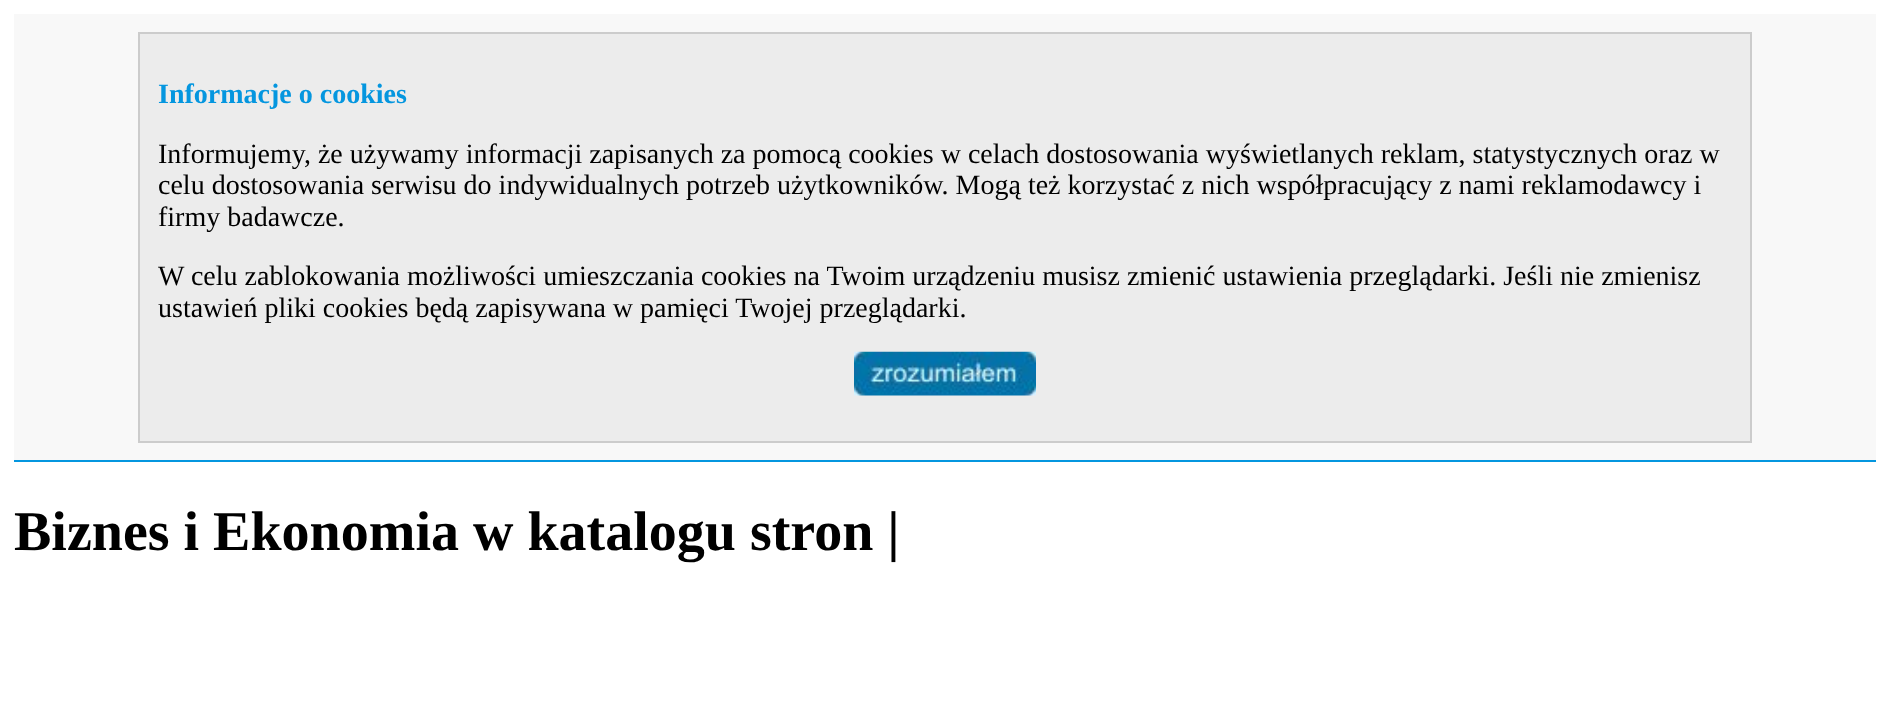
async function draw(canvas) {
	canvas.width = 1889;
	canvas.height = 727;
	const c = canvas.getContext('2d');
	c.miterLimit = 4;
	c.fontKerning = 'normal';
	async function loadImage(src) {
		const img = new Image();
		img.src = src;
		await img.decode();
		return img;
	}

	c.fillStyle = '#fff';
	c.fillRect(0, 0, 1889, 727);
	c.fillStyle = '#f8f8f8';
	c.fillRect(14, 14, 1862, 446);
	c.fillStyle = '#0496df';
	c.fillRect(14, 460, 1862, 2);
	c.fillStyle = '#ececec';
	c.beginPath();
	c.rect(139, 33, 1612, 409);
	c.fill();
	c.strokeStyle = '#ccc';
	c.lineWidth = 2;
	c.stroke();
	c.font = 'bold 28px Liberation Serif';
	c.fillStyle = '#0496df';
	c.fillText('Informacje o cookies', 158, 103);
	c.font = '28px Liberation Serif';
	c.fillStyle = '#000';
	for (const [text, x, y] of [
		['Informujemy, że używamy informacji zapisanych za pomocą cookies w celach dostosowania wyświetlanych reklam, statystycznych oraz w', 158, 163],
		['celu dostosowania serwisu do indywidualnych potrzeb użytkowników. Mogą też korzystać z nich współpracujący z nami reklamodawcy i', 158, 194],
		['firmy badawcze.', 158, 226],
		['W celu zablokowania możliwości umieszczania cookies na Twoim urządzeniu musisz zmienić ustawienia przeglądarki. Jeśli nie zmienisz', 158, 285],
		['ustawień pliki cookies będą zapisywana w pamięci Twojej przeglądarki.', 158, 317],
	]) {
		c.fillText(text, x, y);
	}
	c.drawImage(await loadImage('img1.png'), 854, 351, 182, 45);
	c.font = 'bold 56px Liberation Serif';
	c.fillText('Biznes i Ekonomia w katalogu stron |', 14, 550);
}

draw(document.querySelector('canvas'));
